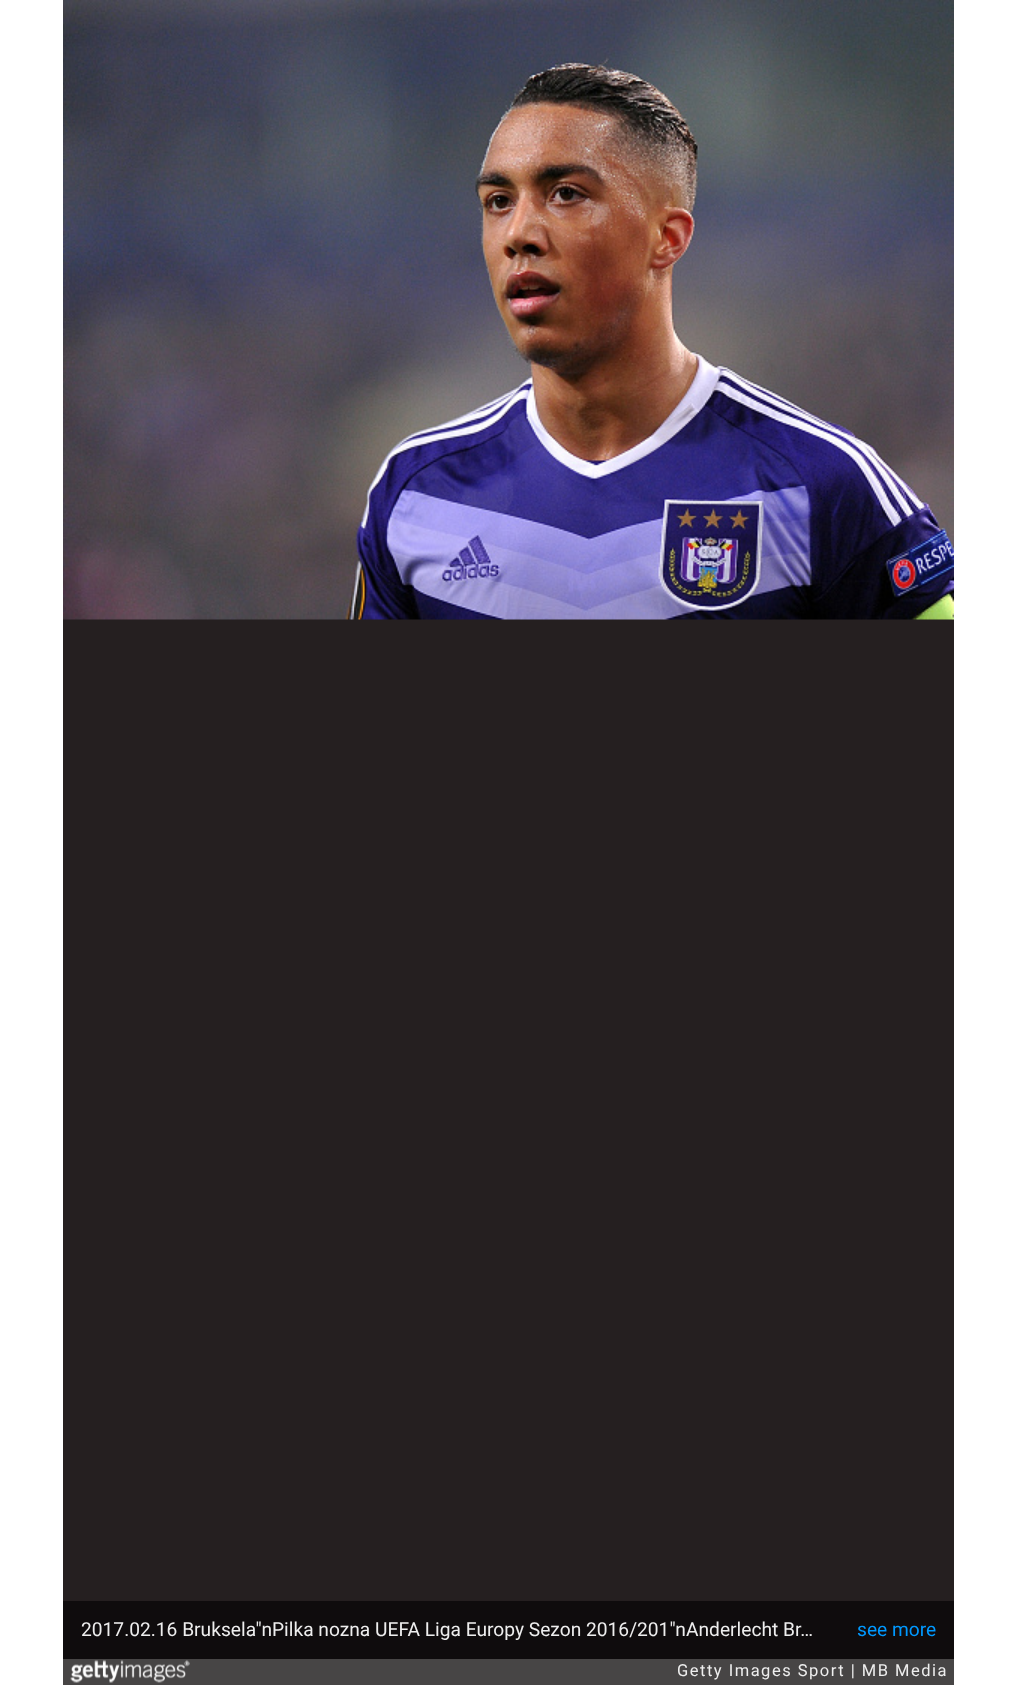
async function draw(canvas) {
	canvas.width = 1016;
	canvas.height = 1685;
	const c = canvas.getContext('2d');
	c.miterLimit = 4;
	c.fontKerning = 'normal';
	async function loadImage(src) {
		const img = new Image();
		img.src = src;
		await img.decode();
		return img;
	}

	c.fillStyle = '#fff';
	c.fillRect(0, 0, 1016, 1685);
	c.fillStyle = '#251f20';
	c.fillRect(63, 619, 891, 982);
	c.drawImage(await loadImage('img1.png'), 63, 0, 891, 620);
	c.fillStyle = '#0f0c0d';
	c.fillRect(63, 1601, 891, 58);
	c.font = '19.2px Roboto';
	c.fillStyle = '#eee';
	c.fillText('2017.02.16 Bruksela"nPilka nozna UEFA Liga Europy Sezon 2016/201"nAnderlecht Br…', 81, 1636);
	c.fillStyle = '#09f';
	c.fillText('see more', 857, 1636);
	c.fillStyle = '#474545';
	c.fillRect(63, 1659, 891, 26);
	c.drawImage(await loadImage('img2.png'), 70, 1660, 120, 23);
	c.letterSpacing = '1.5px';
	c.font = '16.5px Roboto';
	c.fillStyle = '#eee';
	c.fillText('Getty Images Sport | MB Media', 677, 1676);
}

draw(document.querySelector('canvas'));
